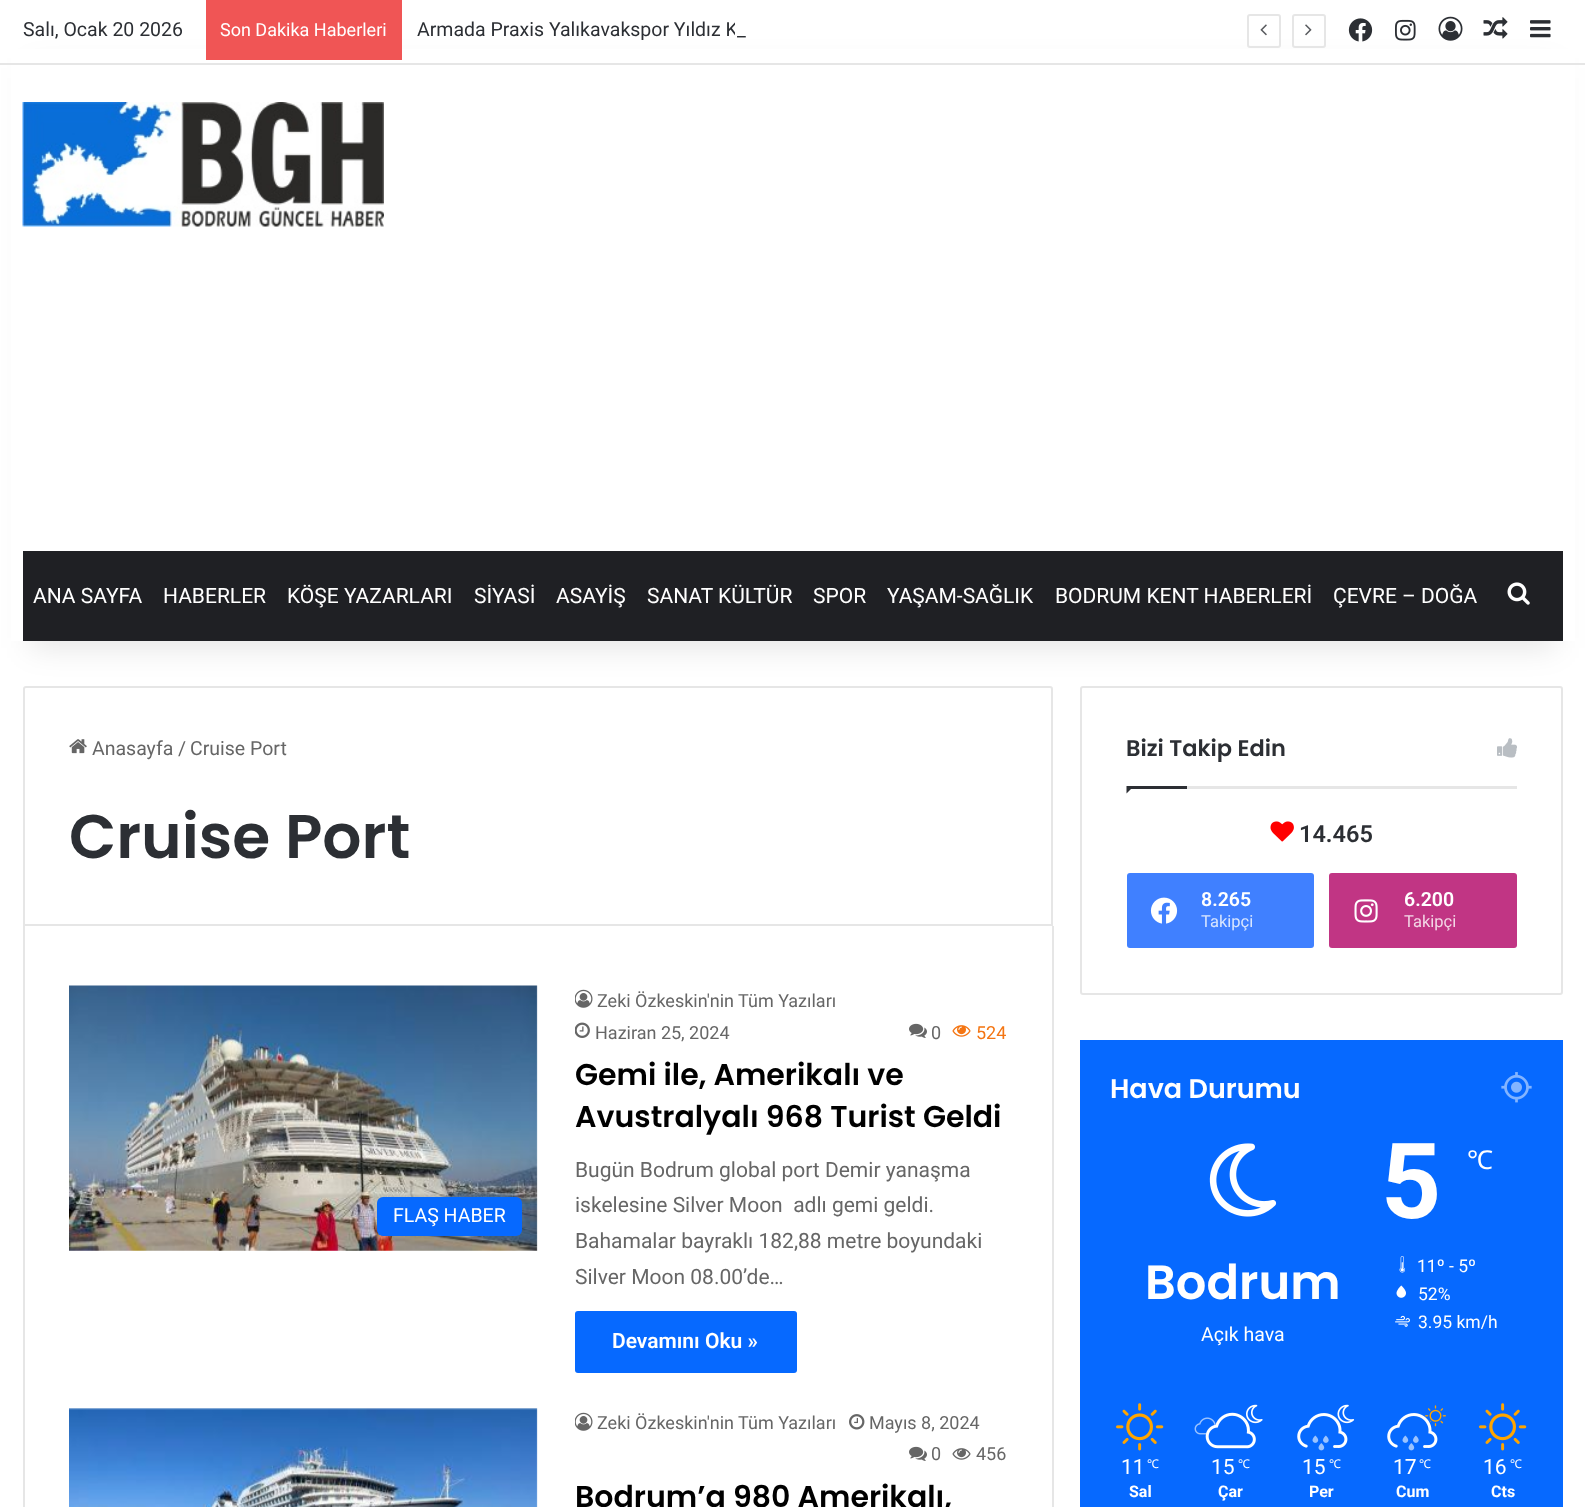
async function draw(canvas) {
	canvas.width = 1585;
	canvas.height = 1507;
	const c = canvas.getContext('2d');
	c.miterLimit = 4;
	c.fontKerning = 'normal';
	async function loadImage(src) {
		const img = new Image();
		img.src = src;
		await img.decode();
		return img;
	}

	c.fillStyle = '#fff';
	c.fillRect(0, 0, 1585, 1507);
	c.beginPath();
	c.roundRect(24, 687, 1028, 238, [2, 2, 0, 0]);
	c.strokeStyle = '#e6e6e6';
	c.lineWidth = 2;
	c.stroke();
	c.beginPath();
	c.roundRect(1081, 687, 481, 307, 2);
	c.stroke();
	c.fillStyle = '#0000001a';
	c.filter = 'blur(15px)';
	c.beginPath();
	c.rect(30, 68, 1526, 580);
	c.fill();
	c.filter = 'none';
	c.fillStyle = '#fff';
	c.fillRect(11, 49, 1564, 592);
	c.fillStyle = '#e6e6e6';
	c.fillRect(0, 63, 1585, 2);
	c.font = '19.5px Roboto';
	c.fillStyle = '#2c2f34';
	c.fillText('Salı, Ocak 20 2026', 23, 36);
	c.fillStyle = '#f05555';
	c.fillRect(206, 0, 196, 60);
	c.font = '18px Roboto';
	c.fillStyle = '#fff';
	c.fillText('Son Dakika Haberleri', 220, 36);
	c.font = '19.5px Roboto';
	c.fillStyle = '#2c2f34';
	c.fillText('Armada Praxis Yalıkavakspor Yıldız K', 417, 36);
	c.fillStyle = '#fff';
	c.fillRect(735, 22, 3, 14);
	c.fillStyle = '#2c2f34';
	c.fillText('_', 737, 36);
	c.beginPath();
	c.roundRect(1248, 15, 32, 32, 2);
	c.stroke();
	c.drawImage(await loadImage('img1.png'), 1260, 24, 7, 12);
	c.beginPath();
	c.roundRect(1293, 15, 32, 32, 2);
	c.stroke();
	c.drawImage(await loadImage('img2.png'), 1305, 24, 7, 12);
	c.drawImage(await loadImage('img3.png'), 1348, 18, 25, 24);
	c.drawImage(await loadImage('img4.png'), 1395, 19, 21, 22);
	c.drawImage(await loadImage('img5.png'), 1438, 16, 25, 25);
	c.drawImage(await loadImage('img6.png'), 1483, 17, 25, 22);
	c.drawImage(await loadImage('img7.png'), 1530, 20, 21, 18);
	c.drawImage(await loadImage('img8.png'), 22, 102, 362, 125);
	c.fillStyle = '#1f2024';
	c.fillRect(23, 551, 1540, 90);
	c.font = '21px Roboto';
	c.fillStyle = '#fff';
	for (const [text, x, y] of [
		['ANA SAYFA', 33, 603],
		['HABERLER', 163, 603],
		['KÖŞE YAZARLARI', 287, 603],
		['SİYASİ', 474, 603],
		['ASAYİŞ', 556, 603],
		['SANAT KÜLTÜR', 647, 603],
		['SPOR', 813, 603],
		['YAŞAM-SAĞLIK', 887, 603],
		['BODRUM KENT HABERLERİ', 1055, 603],
		['ÇEVRE – DOĞA', 1333, 603],
	]) {
		c.fillText(text, x, y);
	}
	c.drawImage(await loadImage('img9.png'), 1507, 582, 23, 23);
	c.drawImage(await loadImage('img10.png'), 69, 739, 18, 15);
	c.font = '19.5px Roboto';
	c.fillStyle = '#666';
	for (const [text, x, y] of [
		['Anasayfa', 92, 755],
		['/', 178, 755],
		['Cruise Port', 190, 755],
	]) {
		c.fillText(text, x, y);
	}
	c.font = '600 61.5px Poppins';
	c.fillStyle = '#2c2f34';
	c.fillText('Cruise Port', 69, 858);
	c.fillStyle = '#e6e6e6';
	c.fillRect(1052, 926, 2, 581);
	c.fillRect(23, 926, 2, 581);
	c.drawImage(await loadImage('img11.png'), 69, 985, 469, 266);
	c.fillStyle = '#0669ff';
	c.beginPath();
	c.roundRect(377, 1197, 145, 39, 6);
	c.fill();
	c.font = '19.5px Roboto';
	c.fillStyle = '#fff';
	c.fillText('FLAŞ HABER', 393, 1222);
	c.drawImage(await loadImage('img12.png'), 575, 989, 18, 19);
	c.font = '18px Roboto';
	c.fillStyle = '#666';
	c.fillText('Zeki Özkeskin\'nin Tüm Yazıları', 597, 1007);
	c.drawImage(await loadImage('img13.png'), 575, 1022, 15, 16);
	c.fillText('Haziran 25, 2024', 595, 1039);
	c.drawImage(await loadImage('img14.png'), 909, 1023, 18, 15);
	c.fillText('0', 931, 1039);
	c.drawImage(await loadImage('img15.png'), 952, 1025, 19, 12);
	c.fillStyle = '#f47512';
	c.fillText('524', 976, 1039);
	c.font = '600 30px Poppins';
	c.fillStyle = '#000';
	c.fillText('Gemi ile, Amerikalı ve', 575, 1085);
	c.fillText('Avustralyalı 968 Turist Geldi', 575, 1127);
	c.font = '21px Roboto';
	c.fillStyle = '#666';
	for (const [text, x, y] of [
		['Bugün Bodrum global port Demir yanaşma', 575, 1177],
		['iskelesine Silver Moon  adlı gemi geldi.', 575, 1212],
		['Bahamalar bayraklı 182,88 metre boyundaki', 575, 1248],
		['Silver Moon 08.00’de…', 575, 1284],
	]) {
		c.fillText(text, x, y);
	}
	c.fillStyle = '#0669ff';
	c.beginPath();
	c.roundRect(575, 1311, 222, 62, 3);
	c.fill();
	c.font = '600 21px Roboto';
	c.fillStyle = '#fff';
	c.fillText('Devamını Oku »', 612, 1348);
	c.drawImage(await loadImage('img16.png'), 69, 1408, 469, 99);
	c.drawImage(await loadImage('img12.png'), 575, 1412, 18, 19);
	c.font = '18px Roboto';
	c.fillStyle = '#666';
	c.fillText('Zeki Özkeskin\'nin Tüm Yazıları', 597, 1429);
	c.drawImage(await loadImage('img17.png'), 849, 1414, 16, 16);
	c.fillText('Mayıs 8, 2024', 869, 1429);
	c.drawImage(await loadImage('img14.png'), 909, 1446, 18, 15);
	c.fillText('0', 931, 1460);
	c.drawImage(await loadImage('img18.png'), 952, 1448, 19, 12);
	c.fillText('456', 976, 1460);
	c.font = '600 30px Poppins';
	c.fillStyle = '#000';
	c.fillText('Bodrum’a 980 Amerikalı,', 575, 1507);
	c.fillStyle = '#e6e6e6';
	c.fillRect(1187, 786, 330, 3);
	c.font = '600 22.5px Poppins';
	c.fillStyle = '#2c2f34';
	c.fillText('Bizi Takip Edin', 1126, 756);
	c.drawImage(await loadImage('img19.png'), 1497, 738, 20, 20);
	c.beginPath();
	c.moveTo(1126.5, 786);
	c.lineTo(1134, 786);
	c.lineTo(1126.5, 793.5);
	c.closePath();
	c.fill();
	c.fillRect(1127, 786, 60, 3);
	c.drawImage(await loadImage('img20.png'), 1270, 821, 24, 21);
	c.font = '600 23.5px Roboto';
	c.fillText('14.465', 1299, 842);
	c.fillStyle = '#4080ff';
	c.beginPath();
	c.roundRect(1127, 873, 187, 75, 3);
	c.fill();
	c.drawImage(await loadImage('img21.png'), 1150, 897, 28, 27);
	c.font = '600 19.5px Roboto';
	c.fillStyle = '#fff';
	c.fillText('8.265', 1201, 906);
	c.font = '16.5px Roboto';
	c.fillStyle = '#d9e6ff';
	c.fillText('Takipçi', 1201, 927);
	c.fillStyle = '#c13584';
	c.beginPath();
	c.roundRect(1329, 873, 188, 75, 3);
	c.fill();
	c.drawImage(await loadImage('img22.png'), 1354, 899, 24, 24);
	c.font = '600 19.5px Roboto';
	c.fillStyle = '#fff';
	c.fillText('6.200', 1404, 906);
	c.font = '16.5px Roboto';
	c.fillStyle = '#f3d7e6';
	c.fillText('Takipçi', 1404, 927);
	c.fillStyle = '#0669ff';
	c.fillRect(1080, 1040, 483, 467);
	c.font = '600 27px Poppins';
	c.fillStyle = '#fff';
	c.fillText('Hava Durumu', 1110, 1098);
	c.drawImage(await loadImage('img23.png'), 1501, 1072, 31, 31);
	c.drawImage(await loadImage('img24.png'), 1209, 1143, 68, 74);
	c.font = '600 48px Poppins';
	c.fillText('Bodrum', 1145, 1299);
	c.font = '19.5px Roboto';
	c.fillText('Açık hava', 1201, 1341);
	c.font = 'bold 105px Roboto';
	c.fillText('5', 1381, 1218);
	c.font = '26px Noto Sans';
	c.fillText('℃', 1467, 1169);
	c.drawImage(await loadImage('img25.png'), 1399, 1256, 6, 17);
	c.font = '17.5px Roboto';
	c.fillText('11º - 5º', 1417, 1272);
	c.drawImage(await loadImage('img26.png'), 1396, 1285, 10, 13);
	c.fillText('52%', 1418, 1300);
	c.drawImage(await loadImage('img27.png'), 1395, 1315, 15, 12);
	c.fillText('3.95 km/h', 1418, 1328);
	c.drawImage(await loadImage('img28.png'), 1116, 1403, 48, 48);
	c.font = '21px Roboto';
	c.fillText('11', 1121, 1474);
	c.font = '12px Noto Sans';
	c.fillText('℃', 1147, 1468);
	c.font = 'bold 16px Roboto';
	c.fillText('Sal', 1129, 1497);
	c.drawImage(await loadImage('img29.png'), 1246, 1404, 17, 20);
	c.drawImage(await loadImage('img31.png'), 1194, 1417, 22, 18);
	c.drawImage(await loadImage('img32.png'), 1205, 1424, 14, 11);
	c.drawImage(await loadImage('img30.png'), 1205, 1412, 51, 37);
	c.font = '21px Roboto';
	c.fillText('15', 1211, 1474);
	c.font = '12px Noto Sans';
	c.fillText('℃', 1238, 1468);
	c.font = 'bold 16px Roboto';
	c.fillText('Çar', 1218, 1497);
	c.drawImage(await loadImage('img33.png'), 1337, 1404, 18, 20);
	c.drawImage(await loadImage('img34.png'), 1297, 1413, 51, 35);
	c.drawImage(await loadImage('img35.png'), 1312, 1435, 7, 8);
	c.drawImage(await loadImage('img36.png'), 1323, 1435, 6, 8);
	c.drawImage(await loadImage('img37.png'), 1318, 1443, 7, 8);
	c.font = '21px Roboto';
	c.fillText('15', 1302, 1474);
	c.font = '12px Noto Sans';
	c.fillText('℃', 1329, 1468);
	c.font = 'bold 16px Roboto';
	c.fillText('Per', 1309, 1497);
	c.drawImage(await loadImage('img38.png'), 1425, 1405, 21, 22);
	c.fillStyle = '#0669ff';
	c.fillRect(1427, 1421, 3, 3);
	c.drawImage(await loadImage('img39.png'), 1387, 1413, 51, 35);
	c.drawImage(await loadImage('img35.png'), 1402, 1435, 7, 8);
	c.drawImage(await loadImage('img36.png'), 1413, 1435, 6, 8);
	c.drawImage(await loadImage('img37.png'), 1408, 1443, 7, 8);
	c.font = '21px Roboto';
	c.fillStyle = '#fff';
	c.fillText('17', 1393, 1474);
	c.font = '12px Noto Sans';
	c.fillText('℃', 1419, 1468);
	c.font = 'bold 16px Roboto';
	c.fillText('Cum', 1396, 1497);
	c.drawImage(await loadImage('img28.png'), 1479, 1403, 48, 48);
	c.font = '21px Roboto';
	c.fillText('16', 1483, 1474);
	c.font = '12px Noto Sans';
	c.fillText('℃', 1510, 1468);
	c.font = 'bold 16px Roboto';
	c.fillText('Cts', 1491, 1497);
}

draw(document.querySelector('canvas'));
